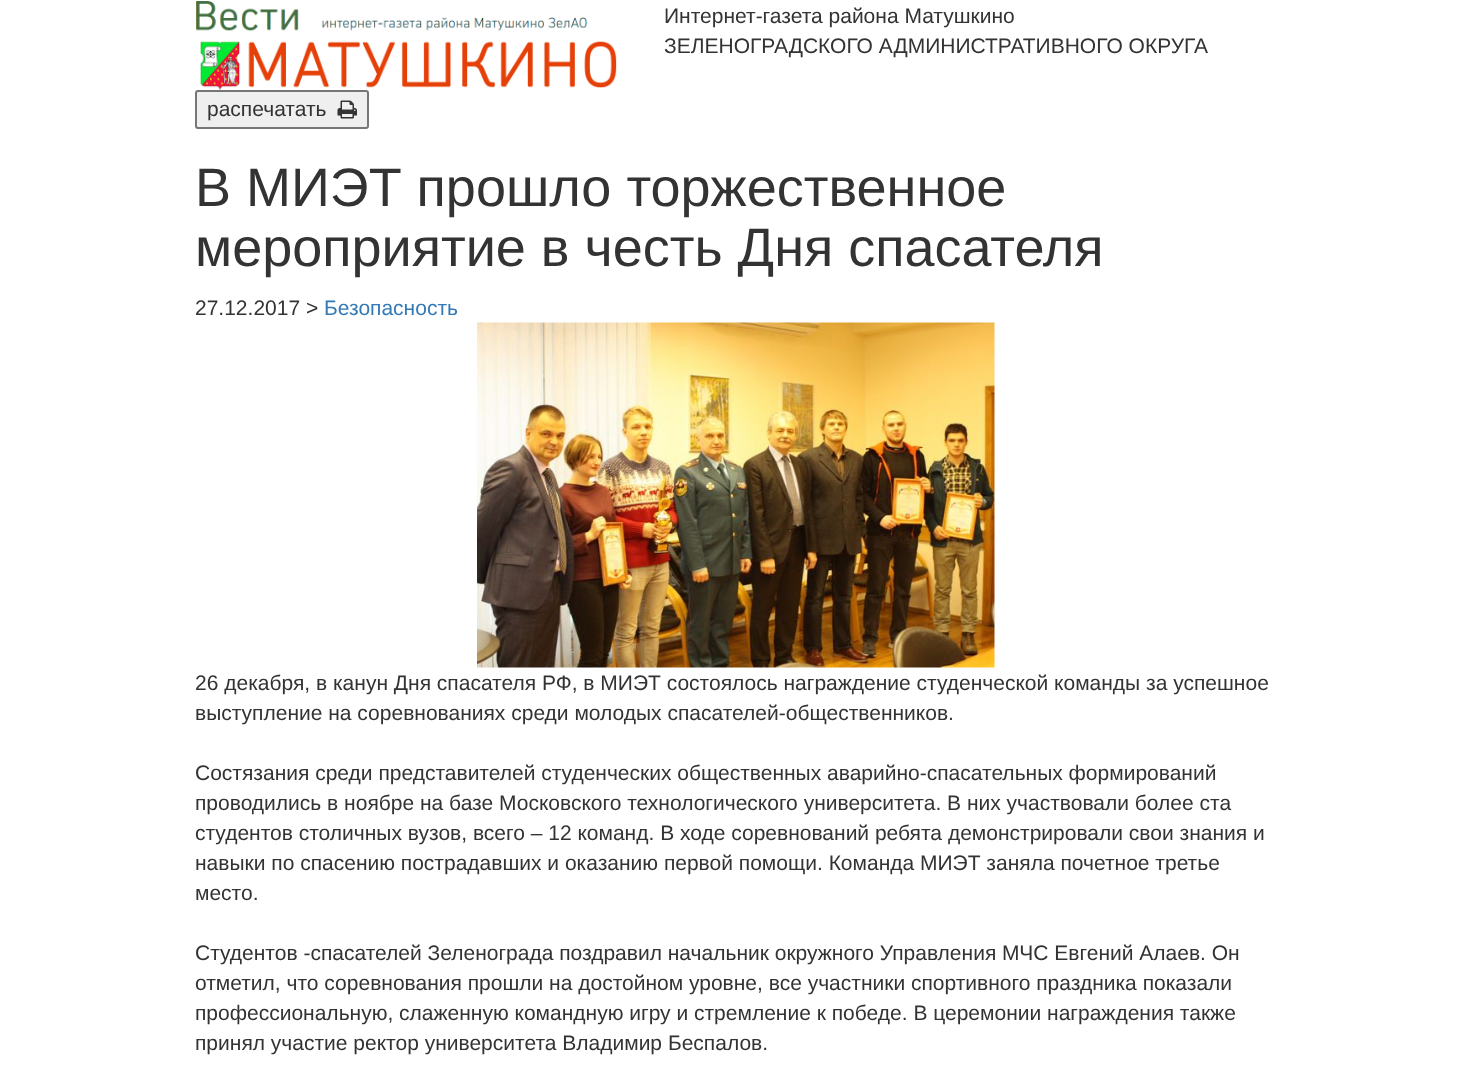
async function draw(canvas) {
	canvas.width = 1470;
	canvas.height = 1084;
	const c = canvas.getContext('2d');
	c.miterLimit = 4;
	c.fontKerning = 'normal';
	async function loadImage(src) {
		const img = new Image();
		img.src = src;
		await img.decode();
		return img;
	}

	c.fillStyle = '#fff';
	c.fillRect(0, 0, 1470, 1084);
	c.drawImage(await loadImage('img1.png'), 196, 1, 421, 89);
	c.font = '21px Liberation Sans';
	c.fillStyle = '#333';
	c.fillText('Интернет-газета района Матушкино', 664, 23);
	c.fillText('ЗЕЛЕНОГРАДСКОГО АДМИНИСТРАТИВНОГО ОКРУГА', 664, 53);
	c.fillStyle = '#efefef';
	c.beginPath();
	c.roundRect(196, 91, 172, 37, 2);
	c.fill();
	c.strokeStyle = '#767676';
	c.lineWidth = 2;
	c.stroke();
	c.fillStyle = '#333';
	c.fillText('распечатать', 207, 116);
	c.drawImage(await loadImage('img2.png'), 337, 100, 20, 19);
	c.font = '54px Liberation Sans';
	c.fillText('В МИЭТ прошло торжественное', 195, 206);
	c.fillText('мероприятие в честь Дня спасателя', 195, 266);
	c.font = '21px Liberation Sans';
	c.fillText('27.12.2017 >', 195, 315);
	c.fillStyle = '#337ab7';
	c.fillText('Безопасность', 324, 315);
	c.drawImage(await loadImage('img3.png'), 477, 322, 518, 346);
	c.fillStyle = '#333';
	for (const [text, x, y] of [
		['26 декабря, в канун Дня спасателя РФ, в МИЭТ состоялось награждение студенческой команды за успешное', 195, 690],
		['выступление на соревнованиях среди молодых спасателей-общественников.', 195, 720],
		['Состязания среди представителей студенческих общественных аварийно-спасательных формирований', 195, 780],
		['проводились в ноябре на базе Московского технологического университета. В них участвовали более ста', 195, 810],
		['студентов столичных вузов, всего – 12 команд. В ходе соревнований ребята демонстрировали свои знания и', 195, 840],
		['навыки по спасению пострадавших и оказанию первой помощи. Команда МИЭТ заняла почетное третье', 195, 870],
		['место.', 195, 900],
		['Студентов -спасателей Зеленограда поздравил начальник окружного Управления МЧС Евгений Алаев. Он', 195, 960],
		['отметил, что соревнования прошли на достойном уровне, все участники спортивного праздника показали', 195, 990],
		['профессиональную, слаженную командную игру и стремление к победе. В церемонии награждения также', 195, 1020],
		['принял участие ректор университета Владимир Беспалов.', 195, 1050],
	]) {
		c.fillText(text, x, y);
	}
}

draw(document.querySelector('canvas'));
